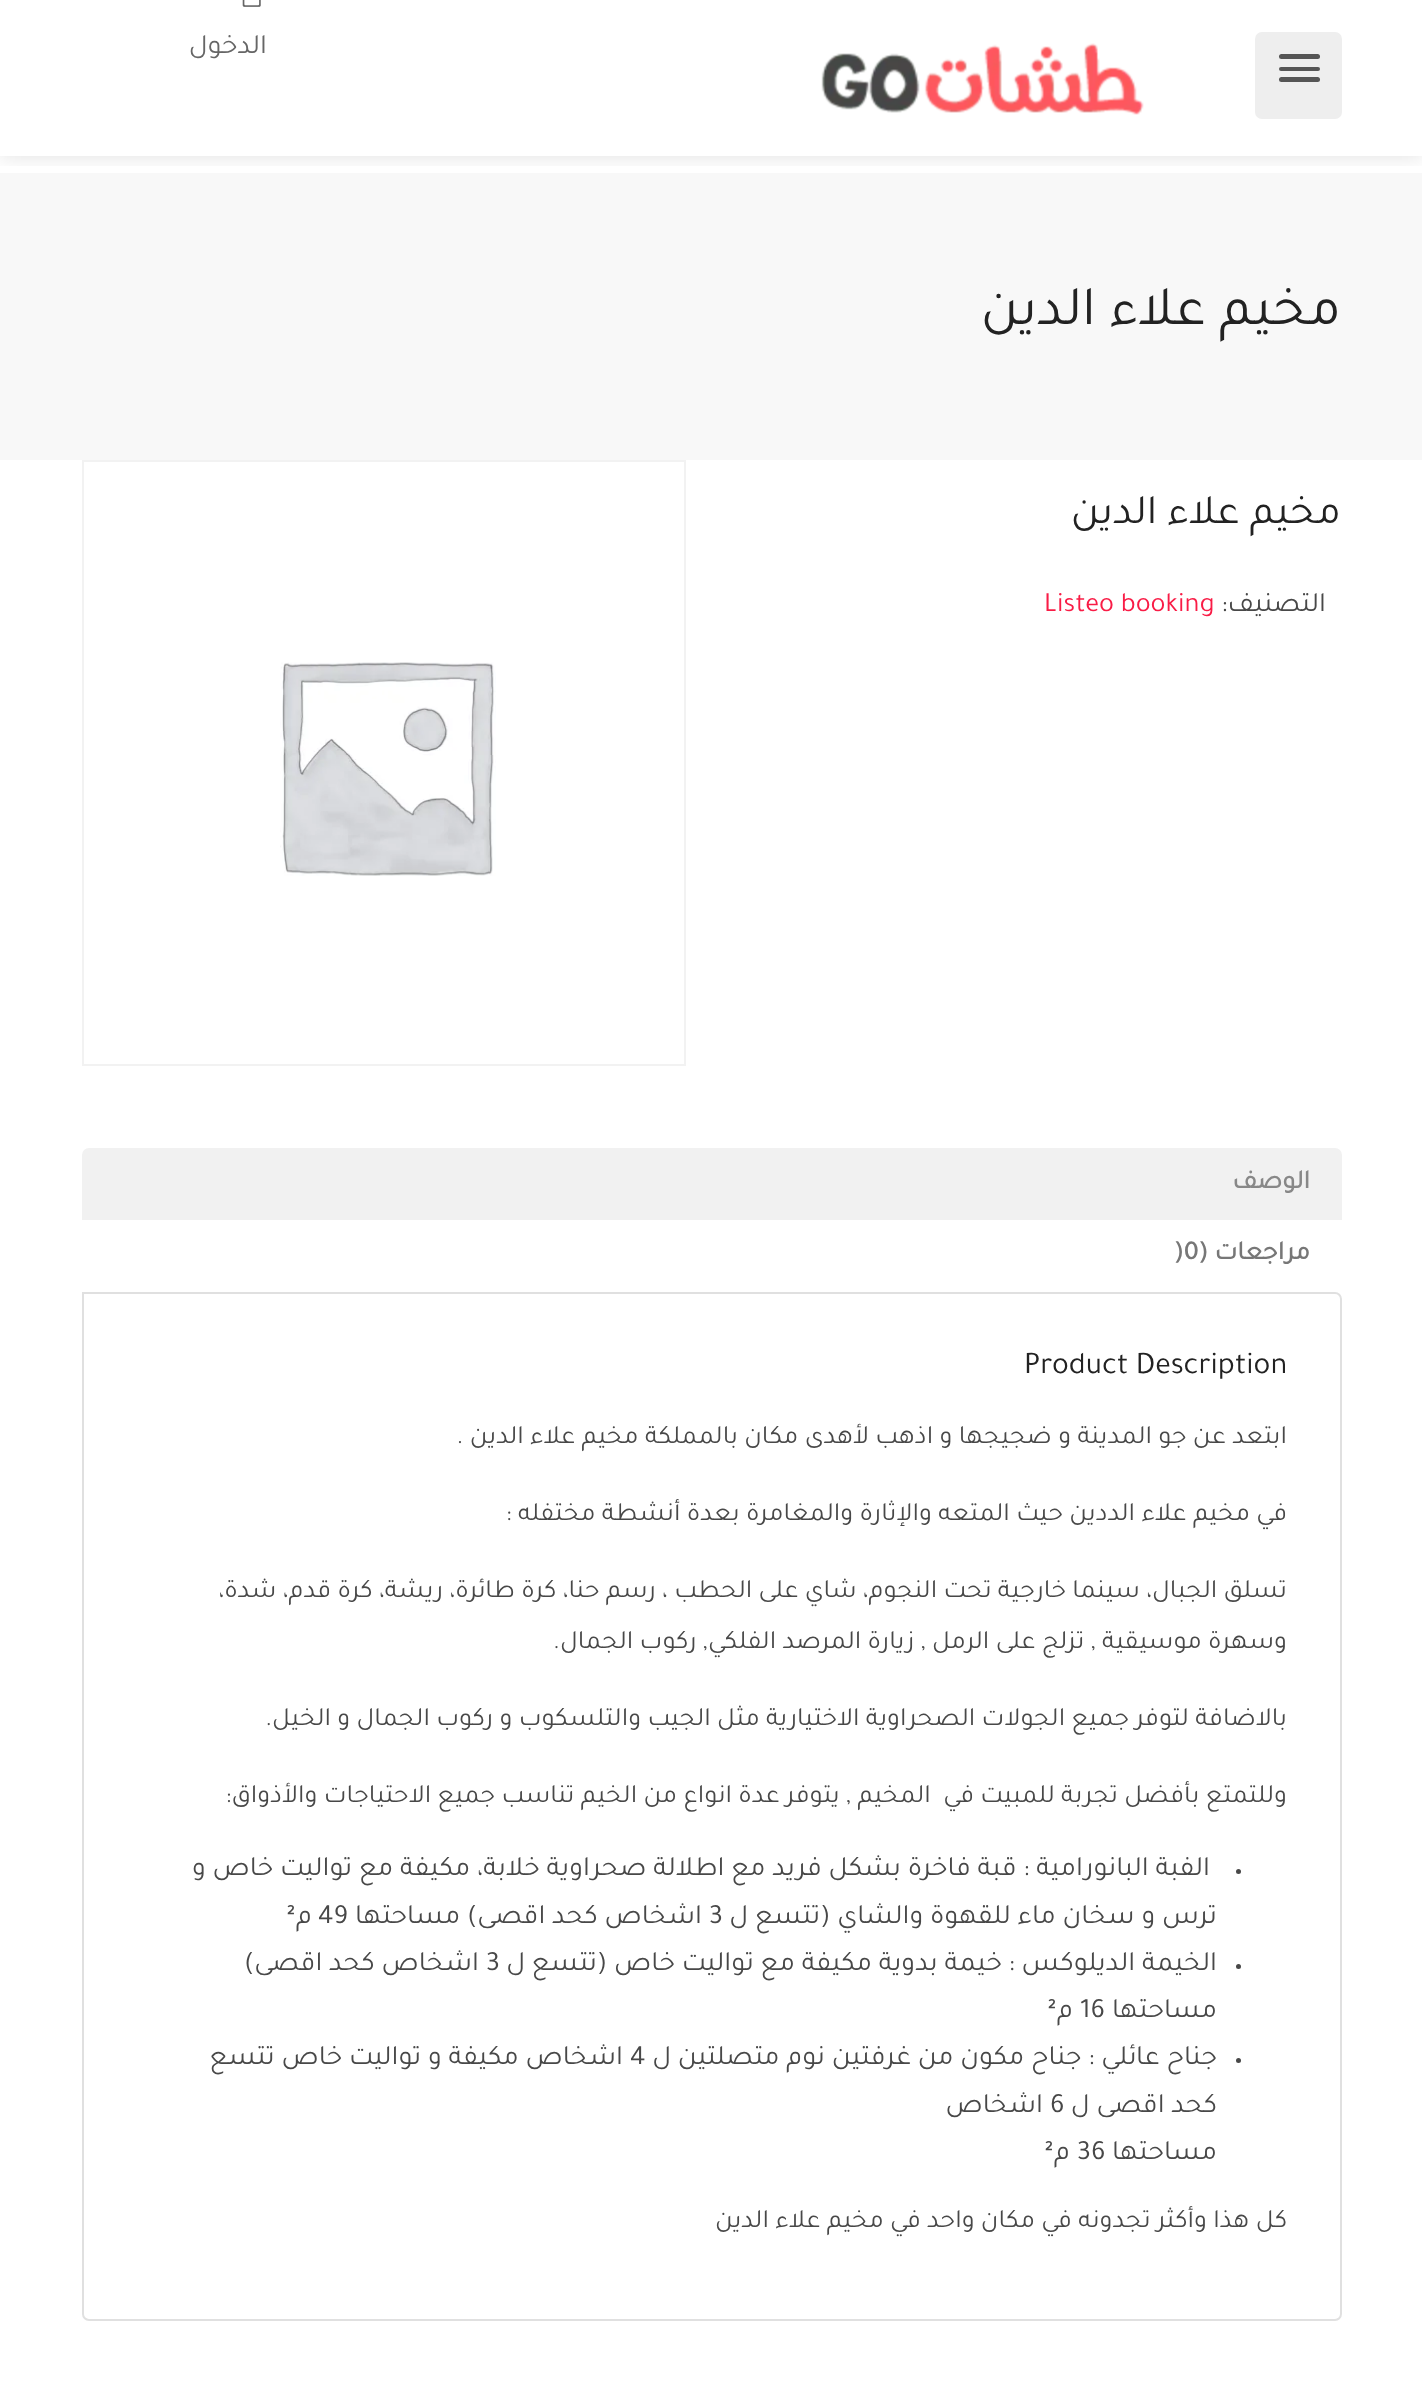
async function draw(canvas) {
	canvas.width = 1422;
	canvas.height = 2394;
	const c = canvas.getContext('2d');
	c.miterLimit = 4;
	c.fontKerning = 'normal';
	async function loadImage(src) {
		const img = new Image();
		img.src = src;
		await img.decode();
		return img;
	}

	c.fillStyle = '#fff';
	c.fillRect(0, 0, 1422, 2394);
	c.fillStyle = '#f8f8f8';
	c.fillRect(0, 173, 1422, 287);
	c.save();
	c.beginPath();
	c.rect(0, 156, 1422, 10);
	c.clip();
	c.fillStyle = '#0000001f';
	c.filter = 'blur(10.5px)';
	c.beginPath();
	c.rect(0, 0, 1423, 156);
	c.fill();
	c.filter = 'none';
	c.restore();
	c.fillStyle = '#eee';
	c.beginPath();
	c.roundRect(1255, 32, 87, 87, 7);
	c.fill();
	c.fillStyle = '#555';
	c.beginPath();
	c.roundRect(1279, 77, 41, 5, 2.5);
	c.fill();
	c.beginPath();
	c.roundRect(1279, 54, 41, 5, 2.5);
	c.fill();
	c.beginPath();
	c.roundRect(1279, 67, 41, 4, 2);
	c.fill();
	c.drawImage(await loadImage('img1.png'), 821, 43, 323, 72);
	c.drawImage(await loadImage('img2.png'), 242, 0, 19, 7);
	c.direction = 'rtl';
	c.font = '28px Tajawal';
	c.fillStyle = '#666';
	c.fillText('الدخول', 267, 53);
	c.font = '56px Tajawal';
	c.fillStyle = '#222';
	c.fillText('مخيم علاء الدين', 1341, 324);
	c.font = '42px Tajawal';
	c.fillText('مخيم علاء الدين', 1341, 523);
	c.font = '28px Tajawal';
	c.fillStyle = '#484848';
	c.fillText('التصنيف:', 1326, 611);
	c.direction = 'ltr';
	c.fillStyle = '#f91c46';
	c.fillText('Listeo booking', 1044, 611);
	c.strokeStyle = '#f2f2f2';
	c.lineWidth = 2;
	c.strokeRect(83, 461, 602, 604);
	c.drawImage(await loadImage('img3.png'), 280, 662, 216, 214);
	c.fillStyle = '#f1f1f1';
	c.beginPath();
	c.roundRect(82, 1148, 1260, 72, [7, 7, 0, 0]);
	c.fill();
	c.direction = 'rtl';
	c.font = 'bold 26.25px Tajawal';
	c.fillStyle = '#888';
	c.fillText('الوصف', 1310, 1188);
	c.fillStyle = '#777';
	c.fillText('مراجعات (', 1310, 1259);
	c.direction = 'ltr';
	c.fillText(')0', 1174, 1259);
	c.beginPath();
	c.roundRect(83, 1293, 1258, 1027, [0, 6, 6, 6]);
	c.strokeStyle = '#e0e0e0';
	c.stroke();
	c.font = '31.5px Tajawal';
	c.fillStyle = '#222';
	c.fillText('Product Description', 1024, 1373);
	c.direction = 'rtl';
	c.font = '26.25px Tajawal';
	c.fillStyle = '#484848';
	for (const [text, x, y] of [
		['ابتعد عن جو المدينة و ضجيجها و اذهب لأهدى مكان بالمملكة مخيم علاء الدين .', 1287, 1443],
		['في مخيم علاء الددين حيث المتعه والإثارة والمغامرة بعدة أنشطة مختفله :', 1287, 1520],
		['تسلق الجبال، سينما خارجية تحت النجوم، شاي على الحطب ، رسم حنا، كرة طائرة، ريشة، كرة قدم، شدة،', 1287, 1597],
		['وسهرة موسيقية , تزلج على الرمل , زيارة المرصد الفلكي, ركوب الجمال.', 1287, 1648],
		['بالاضافة لتوفر جميع الجولات الصحراوية الاختيارية مثل الجيب والتلسكوب و ركوب الجمال و الخيل.', 1287, 1725],
		['وللتمتع بأفضل تجربة للمبيت في  المخيم , يتوفر عدة انواع من الخيم تناسب جميع الاحتياجات والأذواق:', 1287, 1802],
	]) {
		c.fillText(text, x, y);
	}
	c.beginPath();
	c.arc(1238.5, 1871.5, 2.5, 0, 2 * Math.PI);
	c.fill();
	c.font = '28px Tajawal';
	c.fillText('الفبة البانورامية : قبة فاخرة بشكل فريد مع اطلالة صحراوية خلابة، مكيفة مع تواليت خاص و', 1210, 1875);
	c.fillText('ترس و سخان ماء للقهوة والشاي (تتسع ل', 1217, 1923);
	c.direction = 'ltr';
	c.fillText('3', 709, 1923);
	c.direction = 'rtl';
	c.fillText('اشخاص كحد اقصى) مساحتها', 702, 1923);
	c.direction = 'ltr';
	c.fillText('49', 318, 1923);
	c.direction = 'rtl';
	c.fillText('م', 312, 1923);
	c.direction = 'ltr';
	c.fillText('²', 286, 1923);
	c.beginPath();
	c.arc(1238.5, 1966.5, 2.5, 0, 2 * Math.PI);
	c.fill();
	c.direction = 'rtl';
	c.fillText('الخيمة الديلوكس : خيمة بدوية مكيفة مع تواليت خاص (تتسع ل', 1217, 1970);
	c.direction = 'ltr';
	c.fillText('3', 486, 1970);
	c.direction = 'rtl';
	c.fillText('اشخاص كحد اقصى)', 479, 1970);
	c.fillText('مساحتها', 1217, 2017);
	c.direction = 'ltr';
	c.fillText('16', 1080, 2017);
	c.direction = 'rtl';
	c.fillText('م', 1073, 2017);
	c.direction = 'ltr';
	c.fillText('²', 1047, 2017);
	c.beginPath();
	c.arc(1238.5, 2060.5, 2.5, 0, 2 * Math.PI);
	c.fill();
	c.direction = 'rtl';
	c.fillText('جناح عائلي : جناح مكون من غرفتين نوم متصلتين ل', 1217, 2064);
	c.direction = 'ltr';
	c.fillText('4', 630, 2064);
	c.direction = 'rtl';
	c.fillText('اشخاص مكيفة و تواليت خاص تتسع', 623, 2064);
	c.fillText('كحد اقصى ل', 1217, 2112);
	c.direction = 'ltr';
	c.fillText('6', 1050, 2112);
	c.direction = 'rtl';
	c.fillText('اشخاص', 1043, 2112);
	c.fillText('مساحتها', 1217, 2159);
	c.direction = 'ltr';
	c.fillText('36', 1077, 2159);
	c.direction = 'rtl';
	c.fillText('م', 1070, 2159);
	c.direction = 'ltr';
	c.fillText('²', 1044, 2159);
	c.direction = 'rtl';
	c.font = '26.25px Tajawal';
	c.fillText('كل هذا وأكثر تجدونه في مكان واحد في مخيم علاء الدين', 1287, 2227);
}

draw(document.querySelector('canvas'));
